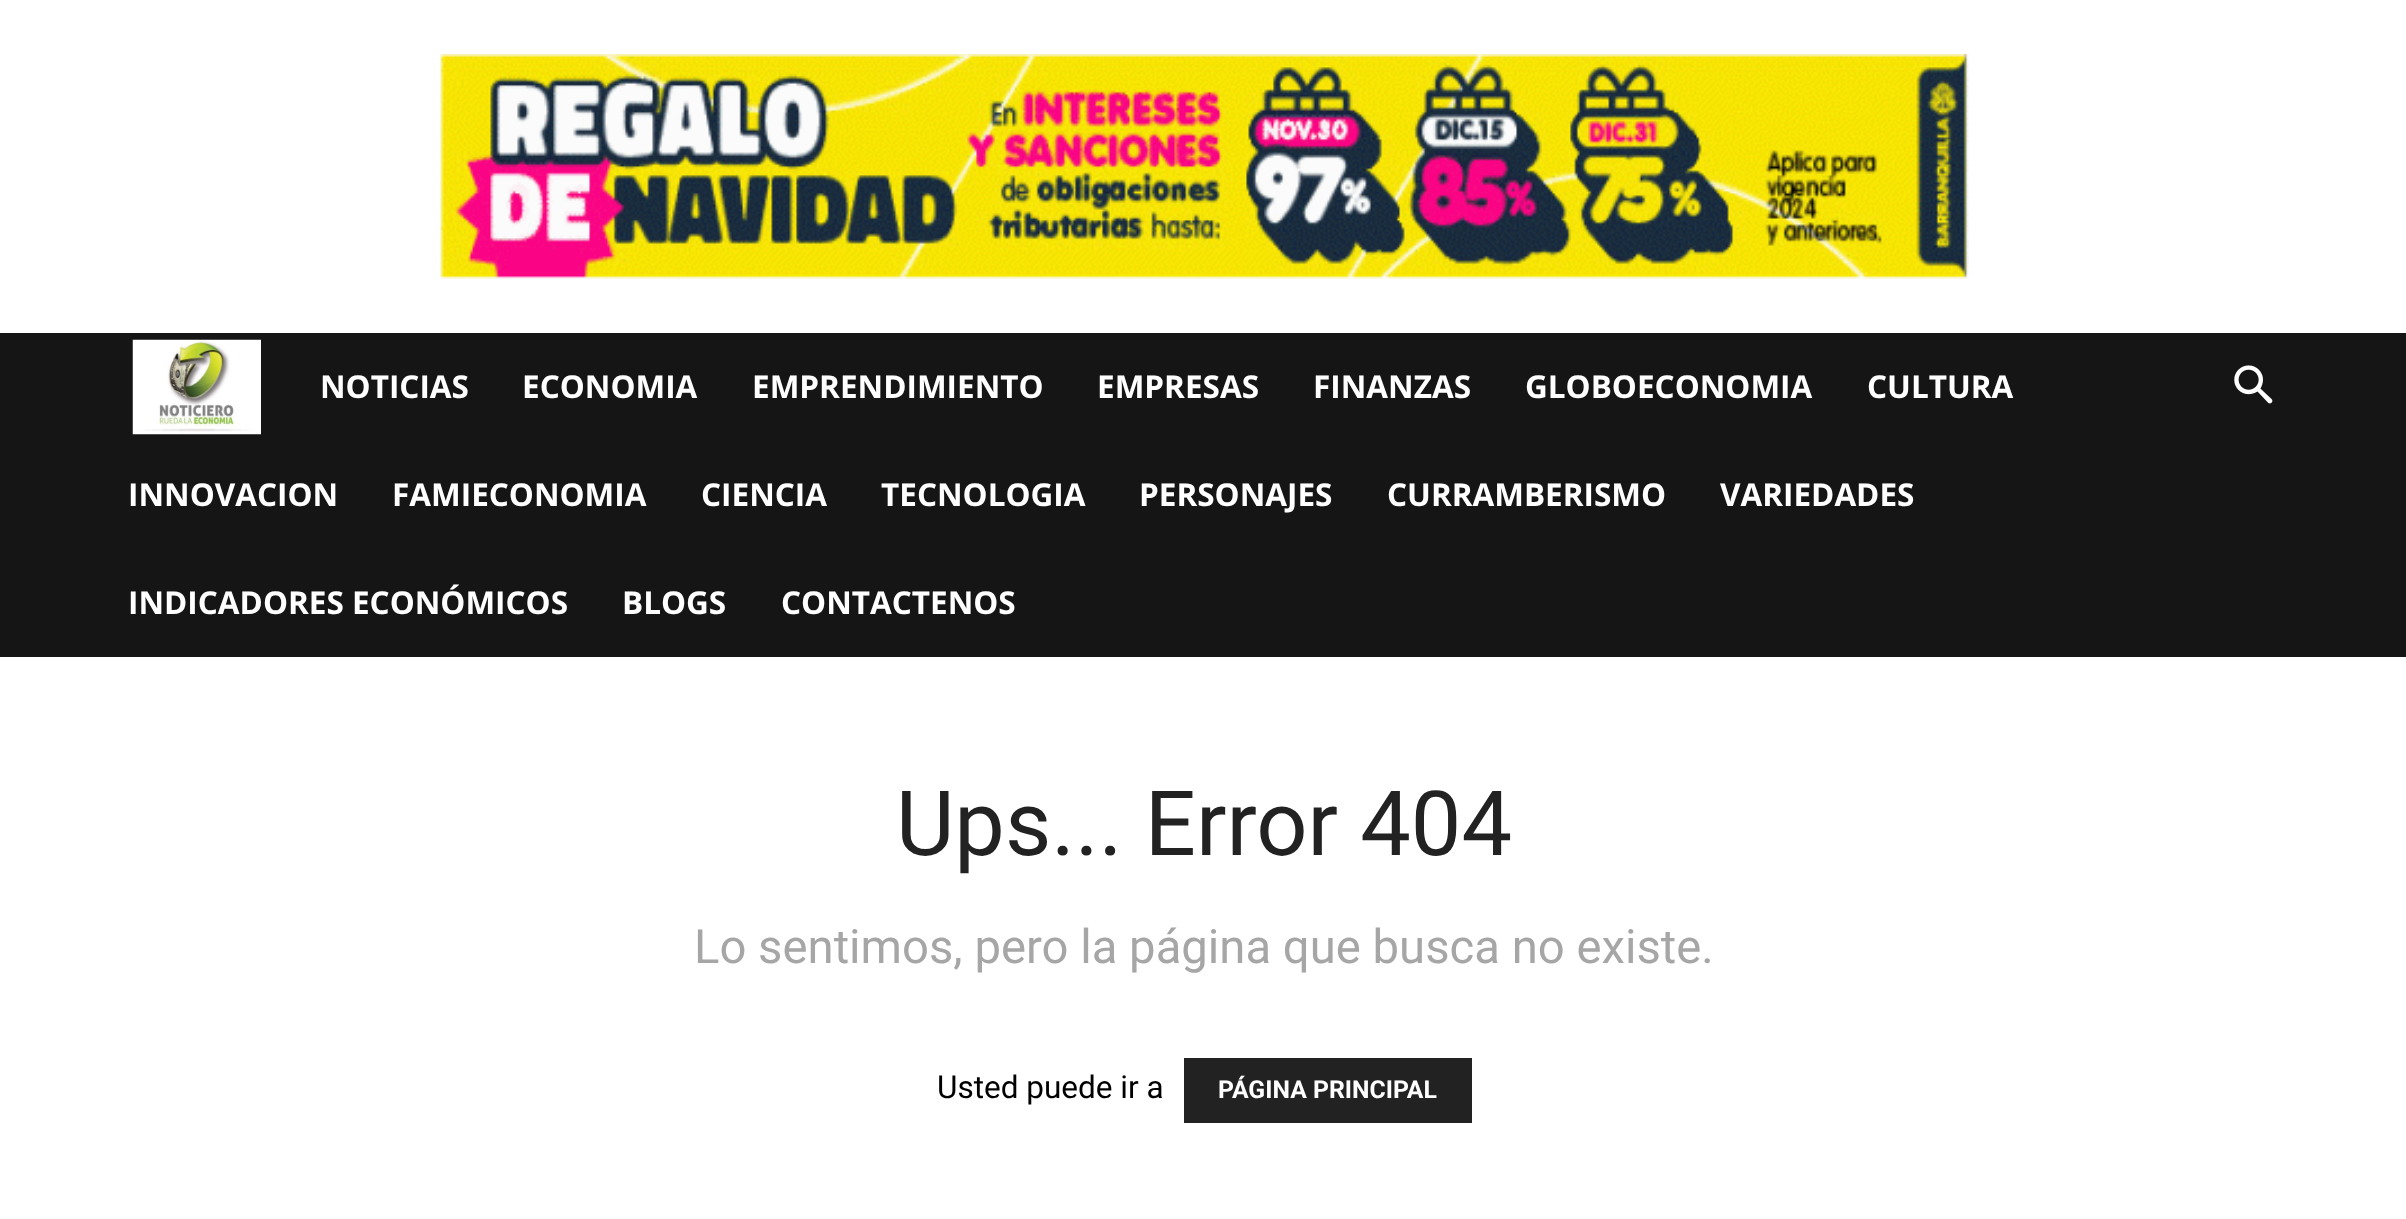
async function draw(canvas) {
	canvas.width = 2406;
	canvas.height = 1219;
	const c = canvas.getContext('2d');
	c.miterLimit = 4;
	c.fontKerning = 'normal';
	async function loadImage(src) {
		const img = new Image();
		img.src = src;
		await img.decode();
		return img;
	}

	c.fillStyle = '#fff';
	c.fillRect(0, 0, 2406, 1219);
	c.drawImage(await loadImage('img1.png'), 440, 54, 1529, 225);
	c.fillStyle = '#151515';
	c.fillRect(0, 333, 2406, 324);
	c.drawImage(await loadImage('img2.png'), 132, 339, 129, 96);
	c.font = 'bold 31.5px Open Sans';
	c.fillStyle = '#fff';
	for (const [text, x, y] of [
		['NOTICIAS', 320, 398],
		['ECONOMIA', 522, 398],
		['EMPRENDIMIENTO', 752, 398],
		['EMPRESAS', 1097, 398],
		['FINANZAS', 1313, 398],
		['GLOBOECONOMIA', 1525, 398],
		['CULTURA', 1867, 398],
		['INNOVACION', 128, 506],
		['FAMIECONOMIA', 392, 506],
		['CIENCIA', 701, 506],
		['TECNOLOGIA', 881, 506],
		['PERSONAJES', 1139, 506],
		['CURRAMBERISMO', 1387, 506],
		['VARIEDADES', 1720, 506],
		['INDICADORES ECONÓMICOS', 128, 614],
		['BLOGS', 622, 614],
		['CONTACTENOS', 781, 614],
	]) {
		c.fillText(text, x, y);
	}
	c.drawImage(await loadImage('img3.png'), 2234, 365, 39, 39);
	c.font = '90px Roboto';
	c.fillStyle = '#222';
	c.fillText('Ups... Error 404', 896, 855);
	c.font = '47.25px Roboto';
	c.fillStyle = '#a6a6a6';
	c.fillText('Lo sentimos, pero la página que busca no existe.', 694, 963);
	c.font = '31.5px Roboto';
	c.fillStyle = '#000';
	c.fillText('Usted puede ir a', 937, 1098);
	c.fillStyle = '#222';
	c.fillRect(1184, 1058, 288, 65);
	c.font = 'bold 24.75px Roboto';
	c.fillStyle = '#fff';
	c.fillText('PÁGINA PRINCIPAL', 1218, 1098);
}

draw(document.querySelector('canvas'));
